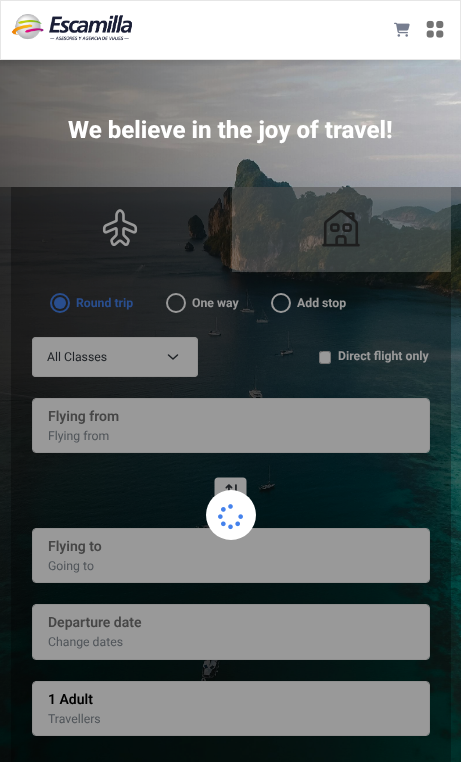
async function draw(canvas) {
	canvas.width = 461;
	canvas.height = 762;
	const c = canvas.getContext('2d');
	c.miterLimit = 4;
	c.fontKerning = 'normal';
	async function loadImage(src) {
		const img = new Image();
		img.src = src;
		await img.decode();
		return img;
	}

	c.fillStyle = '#fff';
	c.fillRect(0, 0, 461, 762);
	c.drawImage(await loadImage('img4.png'), 0, 60, 461, 702);
	c.save();
	c.beginPath();
	c.rect(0, 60, 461, 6);
	c.clip();
	c.fillStyle = '#00000033';
	c.filter = 'blur(5px)';
	c.beginPath();
	c.rect(0, 0, 461, 60);
	c.fill();
	c.filter = 'none';
	c.restore();
	c.strokeStyle = '#e6e6e6';
	c.strokeRect(0.5, 0.5, 460, 59);
	c.drawImage(await loadImage('img1.png'), 11, 14, 121, 27);
	c.drawImage(await loadImage('img2.png'), 394, 22, 16, 15);
	c.drawImage(await loadImage('img3.png'), 426, 20, 18, 18);
	c.font = '800 24.1px Roboto';
	c.fillText('We believe in the joy of travel!', 68, 138);
	c.fillStyle = '#0000004d';
	c.fillRect(11, 187, 219, 85);
	c.drawImage(await loadImage('img5.png'), 102, 209, 36, 38);
	c.fillStyle = '#ffffff4d';
	c.fillRect(232, 187, 219, 85);
	c.drawImage(await loadImage('img6.png'), 322, 209, 38, 38);
	c.fillStyle = '#0000004d';
	c.fillRect(11, 272, 440, 490);
	c.beginPath();
	c.arc(60, 303, 9, 0, 2 * Math.PI);
	c.strokeStyle = '#4582ec';
	c.lineWidth = 2;
	c.stroke();
	c.fillStyle = '#4582ec';
	c.beginPath();
	c.arc(60, 303, 6, 0, 2 * Math.PI);
	c.fill();
	c.font = 'bold 12.25px Roboto';
	c.fillText('Round trip', 76, 307);
	c.beginPath();
	c.arc(176, 303, 9, 0, 2 * Math.PI);
	c.strokeStyle = '#fff';
	c.stroke();
	c.fillStyle = '#fff';
	c.fillText('One way', 192, 307);
	c.beginPath();
	c.arc(281, 303, 9, 0, 2 * Math.PI);
	c.stroke();
	c.fillText('Add stop', 297, 307);
	c.beginPath();
	c.roundRect(32, 337, 166, 40, 4);
	c.fill();
	c.beginPath();
	c.moveTo(168.5, 355);
	c.lineTo(173, 359);
	c.lineTo(177.5, 355);
	c.strokeStyle = '#343a40';
	c.lineWidth = 1.5;
	c.lineCap = 'round';
	c.lineJoin = 'round';
	c.stroke();
	c.beginPath();
	c.roundRect(32.5, 337.5, 165, 39, 3.5);
	c.strokeStyle = '#f0f0f0';
	c.lineWidth = 1;
	c.lineJoin = 'miter';
	c.stroke();
	c.font = '12.25px Roboto';
	c.fillStyle = '#343a40';
	c.fillText('All Classes', 47, 361);
	c.fillStyle = '#fff';
	c.beginPath();
	c.roundRect(319, 351, 12, 13, 3);
	c.fill();
	c.beginPath();
	c.roundRect(319.5, 351.5, 11, 12, 2.5);
	c.strokeStyle = '#00000040';
	c.stroke();
	c.font = 'bold 12.25px Roboto';
	c.fillText('Direct flight only', 338, 360);
	c.beginPath();
	c.roundRect(33, 399, 396, 53, 2.5);
	c.fill();
	c.beginPath();
	c.roundRect(32.5, 398.5, 397, 54, 3.5);
	c.strokeStyle = '#f0f0f0';
	c.stroke();
	c.font = '600 14px Roboto';
	c.fillStyle = '#757575';
	c.fillText('Flying from', 48, 421);
	c.font = '12.25px Roboto';
	c.fillStyle = '#868e96';
	c.fillText('Flying from', 48, 440);
	c.fillStyle = '#fff';
	c.beginPath();
	c.moveTo(246.5, 481);
	c.lineTo(246.5, 500.5);
	c.bezierCurveTo(246.5, 502, 245, 504, 243, 504);
	c.lineTo(218, 504);
	c.bezierCurveTo(216, 504, 214.5, 502, 214.5, 500.5);
	c.lineTo(214.5, 481);
	c.bezierCurveTo(214.5, 479, 216, 477.5, 218, 477.5);
	c.lineTo(243, 477.5);
	c.bezierCurveTo(245, 477.5, 246.5, 479, 246.5, 481);
	c.closePath();
	c.fill();
	c.drawImage(await loadImage('img7.png'), 225, 484, 12, 7);
	c.beginPath();
	c.roundRect(33, 529, 396, 53, 2.5);
	c.fill();
	c.beginPath();
	c.roundRect(32.5, 528.5, 397, 54, 3.5);
	c.stroke();
	c.font = '600 14px Roboto';
	c.fillStyle = '#757575';
	c.fillText('Flying to', 48, 551);
	c.font = '12.25px Roboto';
	c.fillStyle = '#868e96';
	c.fillText('Going to', 48, 570);
	c.fillStyle = '#fff';
	c.beginPath();
	c.roundRect(33, 605, 396, 54, 2.5);
	c.fill();
	c.beginPath();
	c.roundRect(32.5, 604.5, 397, 55, 3.5);
	c.stroke();
	c.font = '600 14px Roboto';
	c.fillStyle = '#757575';
	c.fillText('Departure date', 48, 627);
	c.font = '12.25px Roboto';
	c.fillStyle = '#868e96';
	c.fillText('Change dates', 48, 646);
	c.fillStyle = '#fff';
	c.beginPath();
	c.roundRect(33, 682, 396, 53, 2.5);
	c.fill();
	c.beginPath();
	c.roundRect(32.5, 681.5, 397, 54, 3.5);
	c.stroke();
	c.font = '600 14px Roboto';
	c.fillStyle = '#000';
	c.fillText('1 Adult', 48, 704);
	c.font = '12.25px Roboto';
	c.fillStyle = '#868e96';
	c.fillText('Travellers', 48, 723);
	c.fillStyle = '#00000066';
	c.fillRect(0, 187, 461, 575);
	c.fillStyle = '#fff';
	c.beginPath();
	c.arc(231, 515, 25, 0, 2 * Math.PI);
	c.fill();
	c.drawImage(await loadImage('img8.png'), 218, 504, 25, 26);
}

draw(document.querySelector('canvas'));
